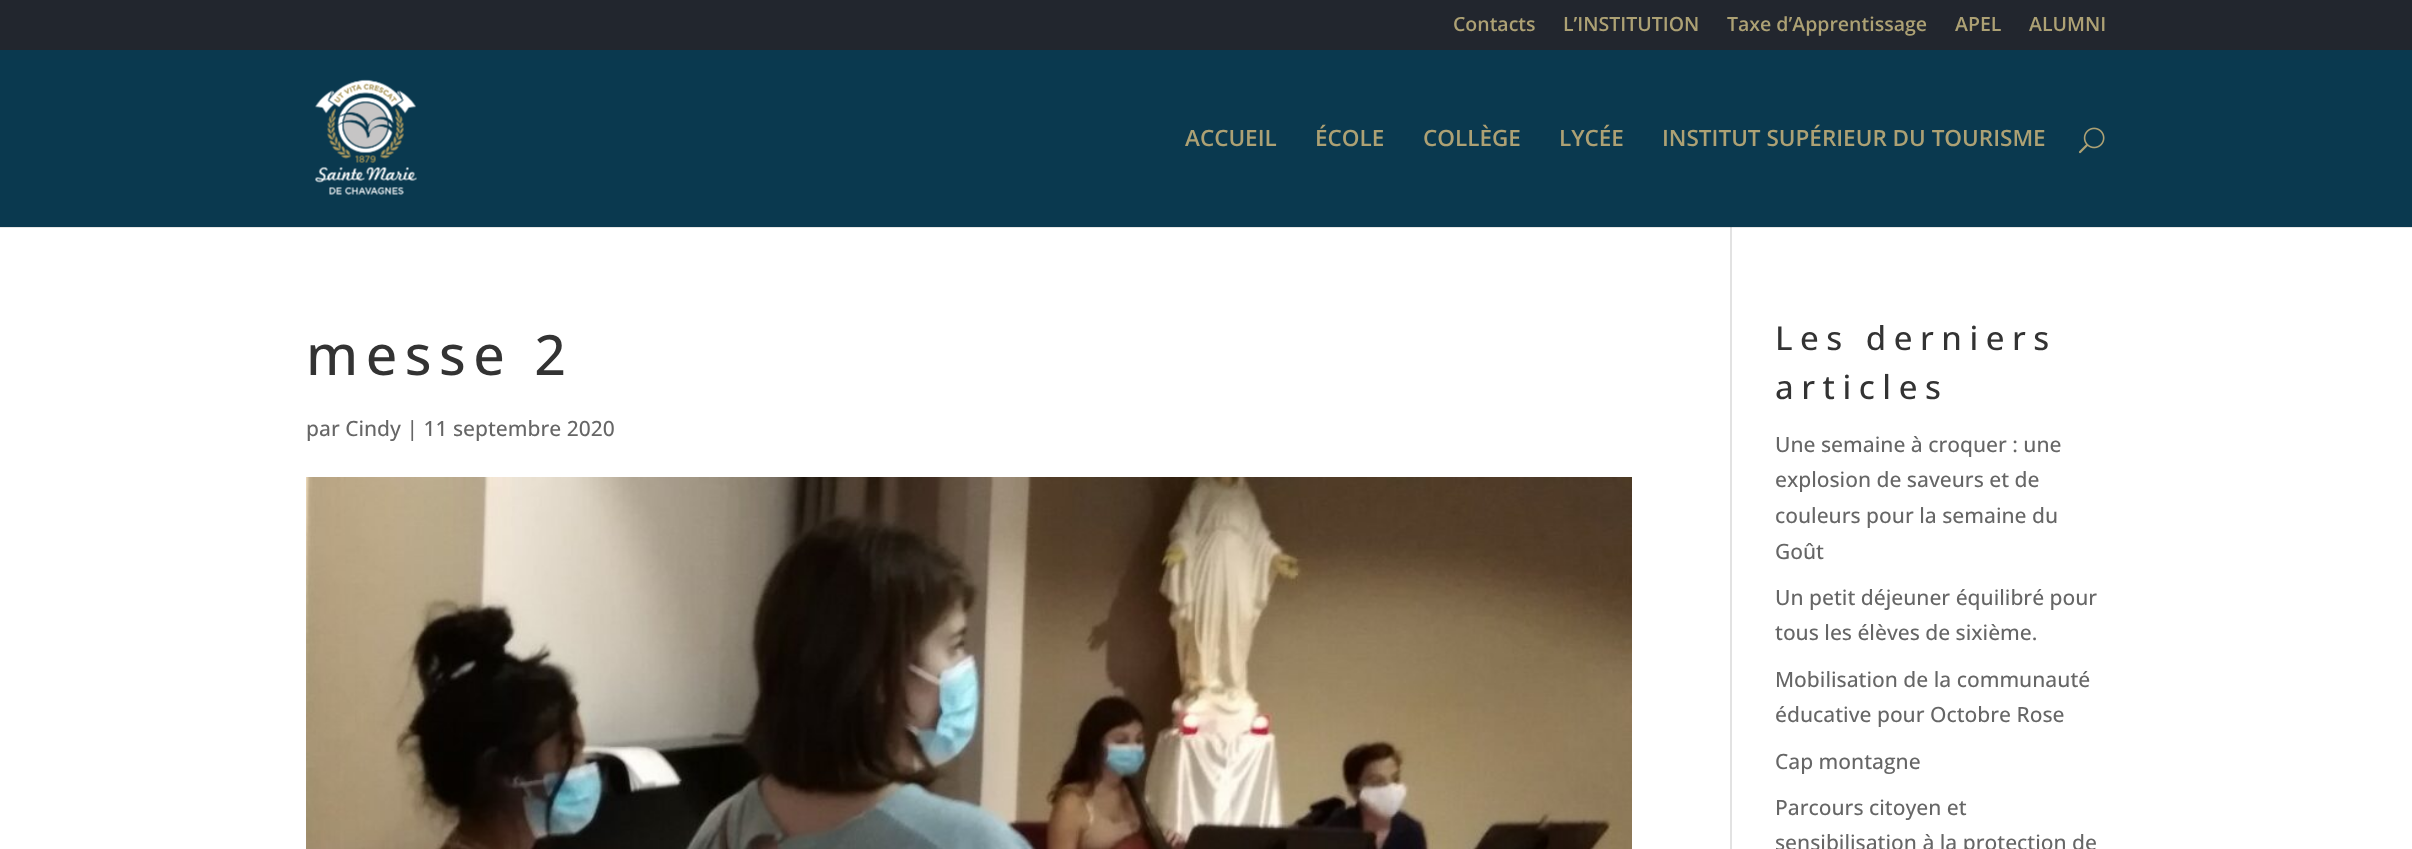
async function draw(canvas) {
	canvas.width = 2412;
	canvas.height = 849;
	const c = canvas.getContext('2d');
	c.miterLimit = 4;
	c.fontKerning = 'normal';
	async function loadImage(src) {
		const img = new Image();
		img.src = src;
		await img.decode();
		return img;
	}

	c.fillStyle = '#fff';
	c.fillRect(0, 0, 2412, 849);
	c.fillStyle = '#e6e6e6';
	c.fillRect(0, 227, 2412, 1);
	c.fillStyle = '#22262e';
	c.fillRect(0, 0, 2412, 50);
	c.font = '600 19.5px Open Sans';
	c.fillStyle = '#ada174';
	for (const [text, x, y] of [
		['Contacts', 1453, 31],
		['L’INSTITUTION', 1563, 31],
		['Taxe d’Apprentissage', 1727, 31],
		['APEL', 1955, 31],
		['ALUMNI', 2029, 31],
	]) {
		c.fillText(text, x, y);
	}
	c.fillStyle = '#e2e2e2';
	c.fillRect(1730, 225, 2, 624);
	c.fillStyle = '#0a394f';
	c.fillRect(0, 50, 2412, 177);
	c.drawImage(await loadImage('img1.png'), 315, 79, 102, 116);
	c.font = '600 22.5px Open Sans';
	c.fillStyle = '#ada174';
	for (const [text, x, y] of [
		['ACCUEIL', 1185, 146],
		['ÉCOLE', 1315, 146],
		['COLLÈGE', 1423, 146],
		['LYCÉE', 1559, 146],
		['INSTITUT SUPÉRIEUR DU TOURISME', 1662, 146],
	]) {
		c.fillText(text, x, y);
	}
	c.drawImage(await loadImage('img2.png'), 2078, 127, 27, 27);
	c.fillStyle = '#cbcbcb';
	c.fillRect(1730, 227, 2, 1);
	c.letterSpacing = '7.5px';
	c.font = '500 55.5px Open Sans';
	c.fillStyle = '#333';
	c.fillText('messe 2', 306, 375);
	c.letterSpacing = '0px';
	c.font = '500 21px Open Sans';
	c.fillStyle = '#666';
	c.fillText('par Cindy | 11 septembre 2020', 306, 436);
	c.drawImage(await loadImage('img3.png'), 306, 477, 1326, 372);
	c.letterSpacing = '7.5px';
	c.font = '500 33px Open Sans';
	c.fillStyle = '#333';
	c.fillText('Les derniers', 1775, 350);
	c.fillText('articles', 1775, 399);
	c.letterSpacing = '0px';
	c.font = '500 21px Open Sans';
	c.fillStyle = '#666';
	for (const [text, x, y] of [
		['Une semaine à croquer : une', 1775, 452],
		['explosion de saveurs et de', 1775, 487],
		['couleurs pour la semaine du', 1775, 523],
		['Goût', 1775, 559],
		['Un petit déjeuner équilibré pour', 1775, 605],
		['tous les élèves de sixième.', 1775, 640],
		['Mobilisation de la communauté', 1775, 687],
		['éducative pour Octobre Rose', 1775, 722],
		['Cap montagne', 1775, 769],
		['Parcours citoyen et', 1775, 815],
		['sensibilisation à la protection de', 1775, 850],
	]) {
		c.fillText(text, x, y);
	}
}

draw(document.querySelector('canvas'));
